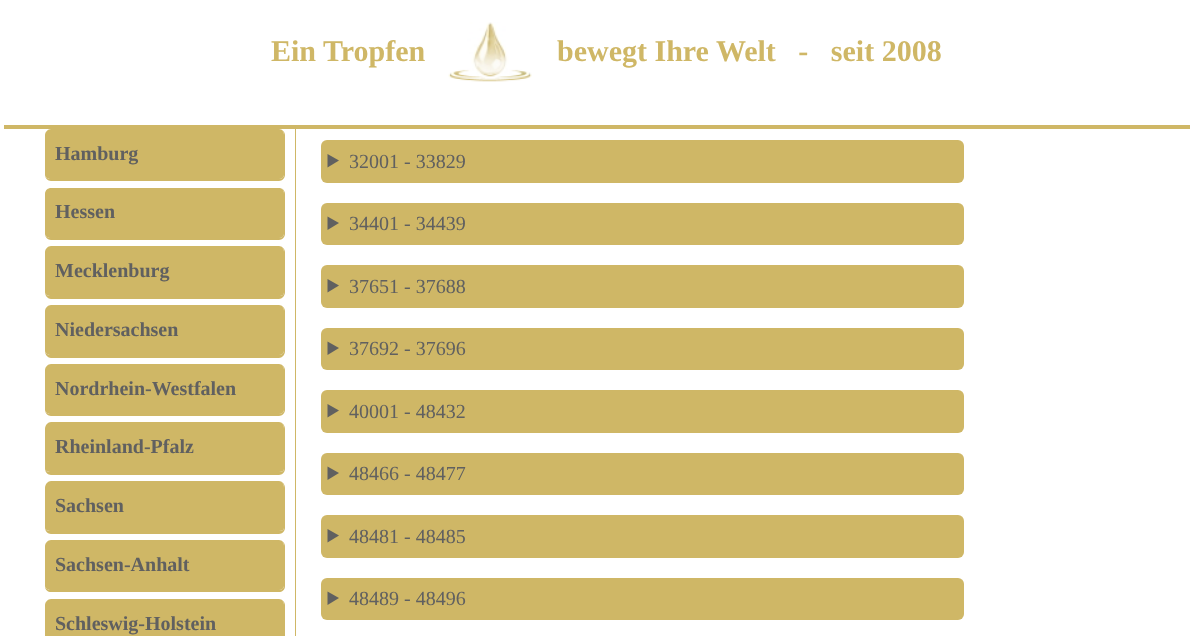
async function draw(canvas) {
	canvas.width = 1190;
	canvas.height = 636;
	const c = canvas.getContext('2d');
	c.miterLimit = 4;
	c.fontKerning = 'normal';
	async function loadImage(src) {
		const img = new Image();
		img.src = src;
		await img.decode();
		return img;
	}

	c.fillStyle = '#fff';
	c.fillRect(0, 0, 1190, 636);
	c.fillStyle = '#cfb766';
	c.fillRect(295, 128, 1, 508);
	c.beginPath();
	c.moveTo(51, 129);
	c.lineTo(279, 129);
	c.bezierCurveTo(282, 129, 284, 132, 284, 135);
	c.lineTo(284, 175);
	c.bezierCurveTo(284, 177, 282, 179, 279, 179);
	c.lineTo(51, 179);
	c.bezierCurveTo(48, 179, 45, 177, 45, 175);
	c.lineTo(45, 135);
	c.bezierCurveTo(45, 132, 48, 129, 51, 129);
	c.closePath();
	c.fill();
	c.beginPath();
	c.moveTo(51, 129);
	c.lineTo(279, 129);
	c.bezierCurveTo(282, 129, 285, 132, 285, 135);
	c.lineTo(285, 175);
	c.bezierCurveTo(285, 178, 282, 181, 279, 181);
	c.lineTo(51, 181);
	c.bezierCurveTo(48, 181, 45, 178, 45, 175);
	c.lineTo(45, 135);
	c.bezierCurveTo(45, 132, 48, 129, 51, 129);
	c.closePath();
	c.moveTo(51, 129);
	c.lineTo(279, 129);
	c.bezierCurveTo(282, 129, 284, 132, 284, 135);
	c.lineTo(284, 175);
	c.bezierCurveTo(284, 177, 282, 179, 279, 179);
	c.lineTo(51, 179);
	c.bezierCurveTo(48, 179, 45, 177, 45, 175);
	c.lineTo(45, 135);
	c.bezierCurveTo(45, 132, 48, 129, 51, 129);
	c.closePath();
	c.fill('evenodd');
	c.filter = 'blur(0.5px)';
	c.beginPath();
	c.rect(4, 4, 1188, 125);
	c.fill();
	c.filter = 'none';
	c.fillStyle = '#fff';
	c.fillRect(3, 3, 1187, 122);
	c.font = 'bold 30px Liberation Serif';
	c.fillStyle = '#cfb766';
	c.fillText('Ein Tropfen', 271, 61);
	c.drawImage(await loadImage('img1.png'), 448, 22, 84, 60);
	c.fillText('bewegt Ihre Welt   -   seit 2008', 557, 61);
	c.font = 'bold 20px Liberation Serif';
	c.fillStyle = '#606060';
	c.fillText('Hamburg', 55, 160);
	c.fillStyle = '#cfb766';
	c.beginPath();
	c.moveTo(51, 188);
	c.lineTo(279, 188);
	c.bezierCurveTo(282, 188, 284, 190, 284, 194);
	c.lineTo(284, 234);
	c.bezierCurveTo(284, 236, 282, 238, 279, 238);
	c.lineTo(51, 238);
	c.bezierCurveTo(48, 238, 45, 236, 45, 234);
	c.lineTo(45, 194);
	c.bezierCurveTo(45, 190, 48, 188, 51, 188);
	c.closePath();
	c.fill();
	c.beginPath();
	c.moveTo(51, 188);
	c.lineTo(279, 188);
	c.bezierCurveTo(282, 188, 285, 190, 285, 194);
	c.lineTo(285, 234);
	c.bezierCurveTo(285, 237, 282, 240, 279, 240);
	c.lineTo(51, 240);
	c.bezierCurveTo(48, 240, 45, 237, 45, 234);
	c.lineTo(45, 194);
	c.bezierCurveTo(45, 190, 48, 188, 51, 188);
	c.closePath();
	c.moveTo(51, 188);
	c.lineTo(279, 188);
	c.bezierCurveTo(282, 188, 284, 190, 284, 194);
	c.lineTo(284, 234);
	c.bezierCurveTo(284, 236, 282, 238, 279, 238);
	c.lineTo(51, 238);
	c.bezierCurveTo(48, 238, 45, 236, 45, 234);
	c.lineTo(45, 194);
	c.bezierCurveTo(45, 190, 48, 188, 51, 188);
	c.closePath();
	c.fill('evenodd');
	c.fillStyle = '#606060';
	c.fillText('Hessen', 55, 218);
	c.fillStyle = '#cfb766';
	c.beginPath();
	c.moveTo(51, 246);
	c.lineTo(279, 246);
	c.bezierCurveTo(282, 246, 284, 249, 284, 252);
	c.lineTo(284, 292);
	c.bezierCurveTo(284, 295, 282, 296, 279, 296);
	c.lineTo(51, 296);
	c.bezierCurveTo(48, 296, 45, 295, 45, 292);
	c.lineTo(45, 252);
	c.bezierCurveTo(45, 249, 48, 246, 51, 246);
	c.closePath();
	c.fill();
	c.beginPath();
	c.moveTo(51, 246);
	c.lineTo(279, 246);
	c.bezierCurveTo(282, 246, 285, 249, 285, 252);
	c.lineTo(285, 292);
	c.bezierCurveTo(285, 296, 282, 299, 279, 299);
	c.lineTo(51, 299);
	c.bezierCurveTo(48, 299, 45, 296, 45, 292);
	c.lineTo(45, 252);
	c.bezierCurveTo(45, 249, 48, 246, 51, 246);
	c.closePath();
	c.moveTo(51, 246);
	c.lineTo(279, 246);
	c.bezierCurveTo(282, 246, 284, 249, 284, 252);
	c.lineTo(284, 292);
	c.bezierCurveTo(284, 295, 282, 296, 279, 296);
	c.lineTo(51, 296);
	c.bezierCurveTo(48, 296, 45, 295, 45, 292);
	c.lineTo(45, 252);
	c.bezierCurveTo(45, 249, 48, 246, 51, 246);
	c.closePath();
	c.fill('evenodd');
	c.fillStyle = '#606060';
	c.fillText('Mecklenburg', 55, 277);
	c.fillStyle = '#cfb766';
	c.beginPath();
	c.moveTo(51, 305);
	c.lineTo(279, 305);
	c.bezierCurveTo(282, 305, 284, 308, 284, 311);
	c.lineTo(284, 351);
	c.bezierCurveTo(284, 353, 282, 355, 279, 355);
	c.lineTo(51, 355);
	c.bezierCurveTo(48, 355, 45, 353, 45, 351);
	c.lineTo(45, 311);
	c.bezierCurveTo(45, 308, 48, 305, 51, 305);
	c.closePath();
	c.fill();
	c.beginPath();
	c.moveTo(51, 305);
	c.lineTo(279, 305);
	c.bezierCurveTo(282, 305, 285, 308, 285, 311);
	c.lineTo(285, 351);
	c.bezierCurveTo(285, 355, 282, 358, 279, 358);
	c.lineTo(51, 358);
	c.bezierCurveTo(48, 358, 45, 355, 45, 351);
	c.lineTo(45, 311);
	c.bezierCurveTo(45, 308, 48, 305, 51, 305);
	c.closePath();
	c.moveTo(51, 305);
	c.lineTo(279, 305);
	c.bezierCurveTo(282, 305, 284, 308, 284, 311);
	c.lineTo(284, 351);
	c.bezierCurveTo(284, 353, 282, 355, 279, 355);
	c.lineTo(51, 355);
	c.bezierCurveTo(48, 355, 45, 353, 45, 351);
	c.lineTo(45, 311);
	c.bezierCurveTo(45, 308, 48, 305, 51, 305);
	c.closePath();
	c.fill('evenodd');
	c.fillStyle = '#606060';
	c.fillText('Niedersachsen', 55, 336);
	c.fillStyle = '#cfb766';
	c.beginPath();
	c.moveTo(51, 364);
	c.lineTo(279, 364);
	c.bezierCurveTo(282, 364, 284, 367, 284, 370);
	c.lineTo(284, 410);
	c.bezierCurveTo(284, 412, 282, 414, 279, 414);
	c.lineTo(51, 414);
	c.bezierCurveTo(48, 414, 45, 412, 45, 410);
	c.lineTo(45, 370);
	c.bezierCurveTo(45, 367, 48, 364, 51, 364);
	c.closePath();
	c.fill();
	c.beginPath();
	c.moveTo(51, 364);
	c.lineTo(279, 364);
	c.bezierCurveTo(282, 364, 285, 367, 285, 370);
	c.lineTo(285, 410);
	c.bezierCurveTo(285, 413, 282, 416, 279, 416);
	c.lineTo(51, 416);
	c.bezierCurveTo(48, 416, 45, 413, 45, 410);
	c.lineTo(45, 370);
	c.bezierCurveTo(45, 367, 48, 364, 51, 364);
	c.closePath();
	c.moveTo(51, 364);
	c.lineTo(279, 364);
	c.bezierCurveTo(282, 364, 284, 367, 284, 370);
	c.lineTo(284, 410);
	c.bezierCurveTo(284, 412, 282, 414, 279, 414);
	c.lineTo(51, 414);
	c.bezierCurveTo(48, 414, 45, 412, 45, 410);
	c.lineTo(45, 370);
	c.bezierCurveTo(45, 367, 48, 364, 51, 364);
	c.closePath();
	c.fill('evenodd');
	c.fillStyle = '#606060';
	c.fillText('Nordrhein-Westfalen', 55, 395);
	c.fillStyle = '#cfb766';
	c.beginPath();
	c.moveTo(51, 422);
	c.lineTo(279, 422);
	c.bezierCurveTo(282, 422, 284, 425, 284, 429);
	c.lineTo(284, 469);
	c.bezierCurveTo(284, 471, 282, 472, 279, 472);
	c.lineTo(51, 472);
	c.bezierCurveTo(48, 472, 45, 471, 45, 469);
	c.lineTo(45, 429);
	c.bezierCurveTo(45, 425, 48, 422, 51, 422);
	c.closePath();
	c.fill();
	c.beginPath();
	c.moveTo(51, 422);
	c.lineTo(279, 422);
	c.bezierCurveTo(282, 422, 285, 425, 285, 429);
	c.lineTo(285, 469);
	c.bezierCurveTo(285, 472, 282, 475, 279, 475);
	c.lineTo(51, 475);
	c.bezierCurveTo(48, 475, 45, 472, 45, 469);
	c.lineTo(45, 429);
	c.bezierCurveTo(45, 425, 48, 422, 51, 422);
	c.closePath();
	c.moveTo(51, 422);
	c.lineTo(279, 422);
	c.bezierCurveTo(282, 422, 284, 425, 284, 429);
	c.lineTo(284, 469);
	c.bezierCurveTo(284, 471, 282, 472, 279, 472);
	c.lineTo(51, 472);
	c.bezierCurveTo(48, 472, 45, 471, 45, 469);
	c.lineTo(45, 429);
	c.bezierCurveTo(45, 425, 48, 422, 51, 422);
	c.closePath();
	c.fill('evenodd');
	c.fillStyle = '#606060';
	c.fillText('Rheinland-Pfalz', 55, 453);
	c.fillStyle = '#cfb766';
	c.beginPath();
	c.moveTo(51, 481);
	c.lineTo(279, 481);
	c.bezierCurveTo(282, 481, 284, 484, 284, 488);
	c.lineTo(284, 528);
	c.bezierCurveTo(284, 530, 282, 531, 279, 531);
	c.lineTo(51, 531);
	c.bezierCurveTo(48, 531, 45, 530, 45, 528);
	c.lineTo(45, 488);
	c.bezierCurveTo(45, 484, 48, 481, 51, 481);
	c.closePath();
	c.fill();
	c.beginPath();
	c.moveTo(51, 481);
	c.lineTo(279, 481);
	c.bezierCurveTo(282, 481, 285, 484, 285, 488);
	c.lineTo(285, 528);
	c.bezierCurveTo(285, 531, 282, 534, 279, 534);
	c.lineTo(51, 534);
	c.bezierCurveTo(48, 534, 45, 531, 45, 528);
	c.lineTo(45, 488);
	c.bezierCurveTo(45, 484, 48, 481, 51, 481);
	c.closePath();
	c.moveTo(51, 481);
	c.lineTo(279, 481);
	c.bezierCurveTo(282, 481, 284, 484, 284, 488);
	c.lineTo(284, 528);
	c.bezierCurveTo(284, 530, 282, 531, 279, 531);
	c.lineTo(51, 531);
	c.bezierCurveTo(48, 531, 45, 530, 45, 528);
	c.lineTo(45, 488);
	c.bezierCurveTo(45, 484, 48, 481, 51, 481);
	c.closePath();
	c.fill('evenodd');
	c.fillStyle = '#606060';
	c.fillText('Sachsen', 55, 512);
	c.fillStyle = '#cfb766';
	c.beginPath();
	c.moveTo(51, 540);
	c.lineTo(279, 540);
	c.bezierCurveTo(282, 540, 284, 543, 284, 546);
	c.lineTo(284, 586);
	c.bezierCurveTo(284, 588, 282, 590, 279, 590);
	c.lineTo(51, 590);
	c.bezierCurveTo(48, 590, 45, 588, 45, 586);
	c.lineTo(45, 546);
	c.bezierCurveTo(45, 543, 48, 540, 51, 540);
	c.closePath();
	c.fill();
	c.beginPath();
	c.moveTo(51, 540);
	c.lineTo(279, 540);
	c.bezierCurveTo(282, 540, 285, 543, 285, 546);
	c.lineTo(285, 586);
	c.bezierCurveTo(285, 590, 282, 592, 279, 592);
	c.lineTo(51, 592);
	c.bezierCurveTo(48, 592, 45, 590, 45, 586);
	c.lineTo(45, 546);
	c.bezierCurveTo(45, 543, 48, 540, 51, 540);
	c.closePath();
	c.moveTo(51, 540);
	c.lineTo(279, 540);
	c.bezierCurveTo(282, 540, 284, 543, 284, 546);
	c.lineTo(284, 586);
	c.bezierCurveTo(284, 588, 282, 590, 279, 590);
	c.lineTo(51, 590);
	c.bezierCurveTo(48, 590, 45, 588, 45, 586);
	c.lineTo(45, 546);
	c.bezierCurveTo(45, 543, 48, 540, 51, 540);
	c.closePath();
	c.fill('evenodd');
	c.fillStyle = '#606060';
	c.fillText('Sachsen-Anhalt', 55, 571);
	c.fillStyle = '#cfb766';
	c.beginPath();
	c.moveTo(51, 599);
	c.lineTo(279, 599);
	c.bezierCurveTo(282, 599, 284, 602, 284, 605);
	c.lineTo(284, 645);
	c.bezierCurveTo(284, 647, 282, 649, 279, 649);
	c.lineTo(51, 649);
	c.bezierCurveTo(48, 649, 45, 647, 45, 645);
	c.lineTo(45, 605);
	c.bezierCurveTo(45, 602, 48, 599, 51, 599);
	c.closePath();
	c.fill();
	c.beginPath();
	c.moveTo(51, 599);
	c.lineTo(279, 599);
	c.bezierCurveTo(282, 599, 285, 602, 285, 605);
	c.lineTo(285, 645);
	c.bezierCurveTo(285, 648, 282, 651, 279, 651);
	c.lineTo(51, 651);
	c.bezierCurveTo(48, 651, 45, 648, 45, 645);
	c.lineTo(45, 605);
	c.bezierCurveTo(45, 602, 48, 599, 51, 599);
	c.closePath();
	c.moveTo(51, 599);
	c.lineTo(279, 599);
	c.bezierCurveTo(282, 599, 284, 602, 284, 605);
	c.lineTo(284, 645);
	c.bezierCurveTo(284, 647, 282, 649, 279, 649);
	c.lineTo(51, 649);
	c.bezierCurveTo(48, 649, 45, 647, 45, 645);
	c.lineTo(45, 605);
	c.bezierCurveTo(45, 602, 48, 599, 51, 599);
	c.closePath();
	c.fill('evenodd');
	c.fillStyle = '#606060';
	c.fillText('Schleswig-Holstein', 55, 630);
	c.fillStyle = '#cfb766';
	c.beginPath();
	c.roundRect(321, 140, 643, 43, 6);
	c.fill();
	c.fillStyle = '#606060';
	c.beginPath();
	c.moveTo(327.5, 154);
	c.lineTo(339, 160.5);
	c.lineTo(327.5, 167.5);
	c.closePath();
	c.fill();
	c.font = '20px Liberation Serif';
	c.fillText('32001 - 33829', 349, 168);
	c.fillStyle = '#cfb766';
	c.beginPath();
	c.roundRect(321, 203, 643, 42, 6);
	c.fill();
	c.fillStyle = '#606060';
	c.beginPath();
	c.moveTo(327.5, 216.5);
	c.lineTo(339, 223);
	c.lineTo(327.5, 230);
	c.closePath();
	c.fill();
	c.fillText('34401 - 34439', 349, 230);
	c.fillStyle = '#cfb766';
	c.beginPath();
	c.roundRect(321, 265, 643, 43, 6);
	c.fill();
	c.fillStyle = '#606060';
	c.beginPath();
	c.moveTo(327.5, 279);
	c.lineTo(339, 285.5);
	c.lineTo(327.5, 292.5);
	c.closePath();
	c.fill();
	c.fillText('37651 - 37688', 349, 293);
	c.fillStyle = '#cfb766';
	c.beginPath();
	c.roundRect(321, 328, 643, 42, 6);
	c.fill();
	c.fillStyle = '#606060';
	c.beginPath();
	c.moveTo(327.5, 341.5);
	c.lineTo(339, 348);
	c.lineTo(327.5, 355);
	c.closePath();
	c.fill();
	c.fillText('37692 - 37696', 349, 355);
	c.fillStyle = '#cfb766';
	c.beginPath();
	c.roundRect(321, 390, 643, 43, 6);
	c.fill();
	c.fillStyle = '#606060';
	c.beginPath();
	c.moveTo(327.5, 404);
	c.lineTo(339, 410.5);
	c.lineTo(327.5, 417.5);
	c.closePath();
	c.fill();
	c.fillText('40001 - 48432', 349, 418);
	c.fillStyle = '#cfb766';
	c.beginPath();
	c.roundRect(321, 453, 643, 42, 6);
	c.fill();
	c.fillStyle = '#606060';
	c.beginPath();
	c.moveTo(327.5, 466.5);
	c.lineTo(339, 473);
	c.lineTo(327.5, 480);
	c.closePath();
	c.fill();
	c.fillText('48466 - 48477', 349, 480);
	c.fillStyle = '#cfb766';
	c.beginPath();
	c.roundRect(321, 515, 643, 43, 6);
	c.fill();
	c.fillStyle = '#606060';
	c.beginPath();
	c.moveTo(327.5, 529);
	c.lineTo(339, 535.5);
	c.lineTo(327.5, 542.5);
	c.closePath();
	c.fill();
	c.fillText('48481 - 48485', 349, 543);
	c.fillStyle = '#cfb766';
	c.beginPath();
	c.roundRect(321, 578, 643, 42, 6);
	c.fill();
	c.fillStyle = '#606060';
	c.beginPath();
	c.moveTo(327.5, 591.5);
	c.lineTo(339, 598);
	c.lineTo(327.5, 605);
	c.closePath();
	c.fill();
	c.fillText('48489 - 48496', 349, 605);
}

draw(document.querySelector('canvas'));
